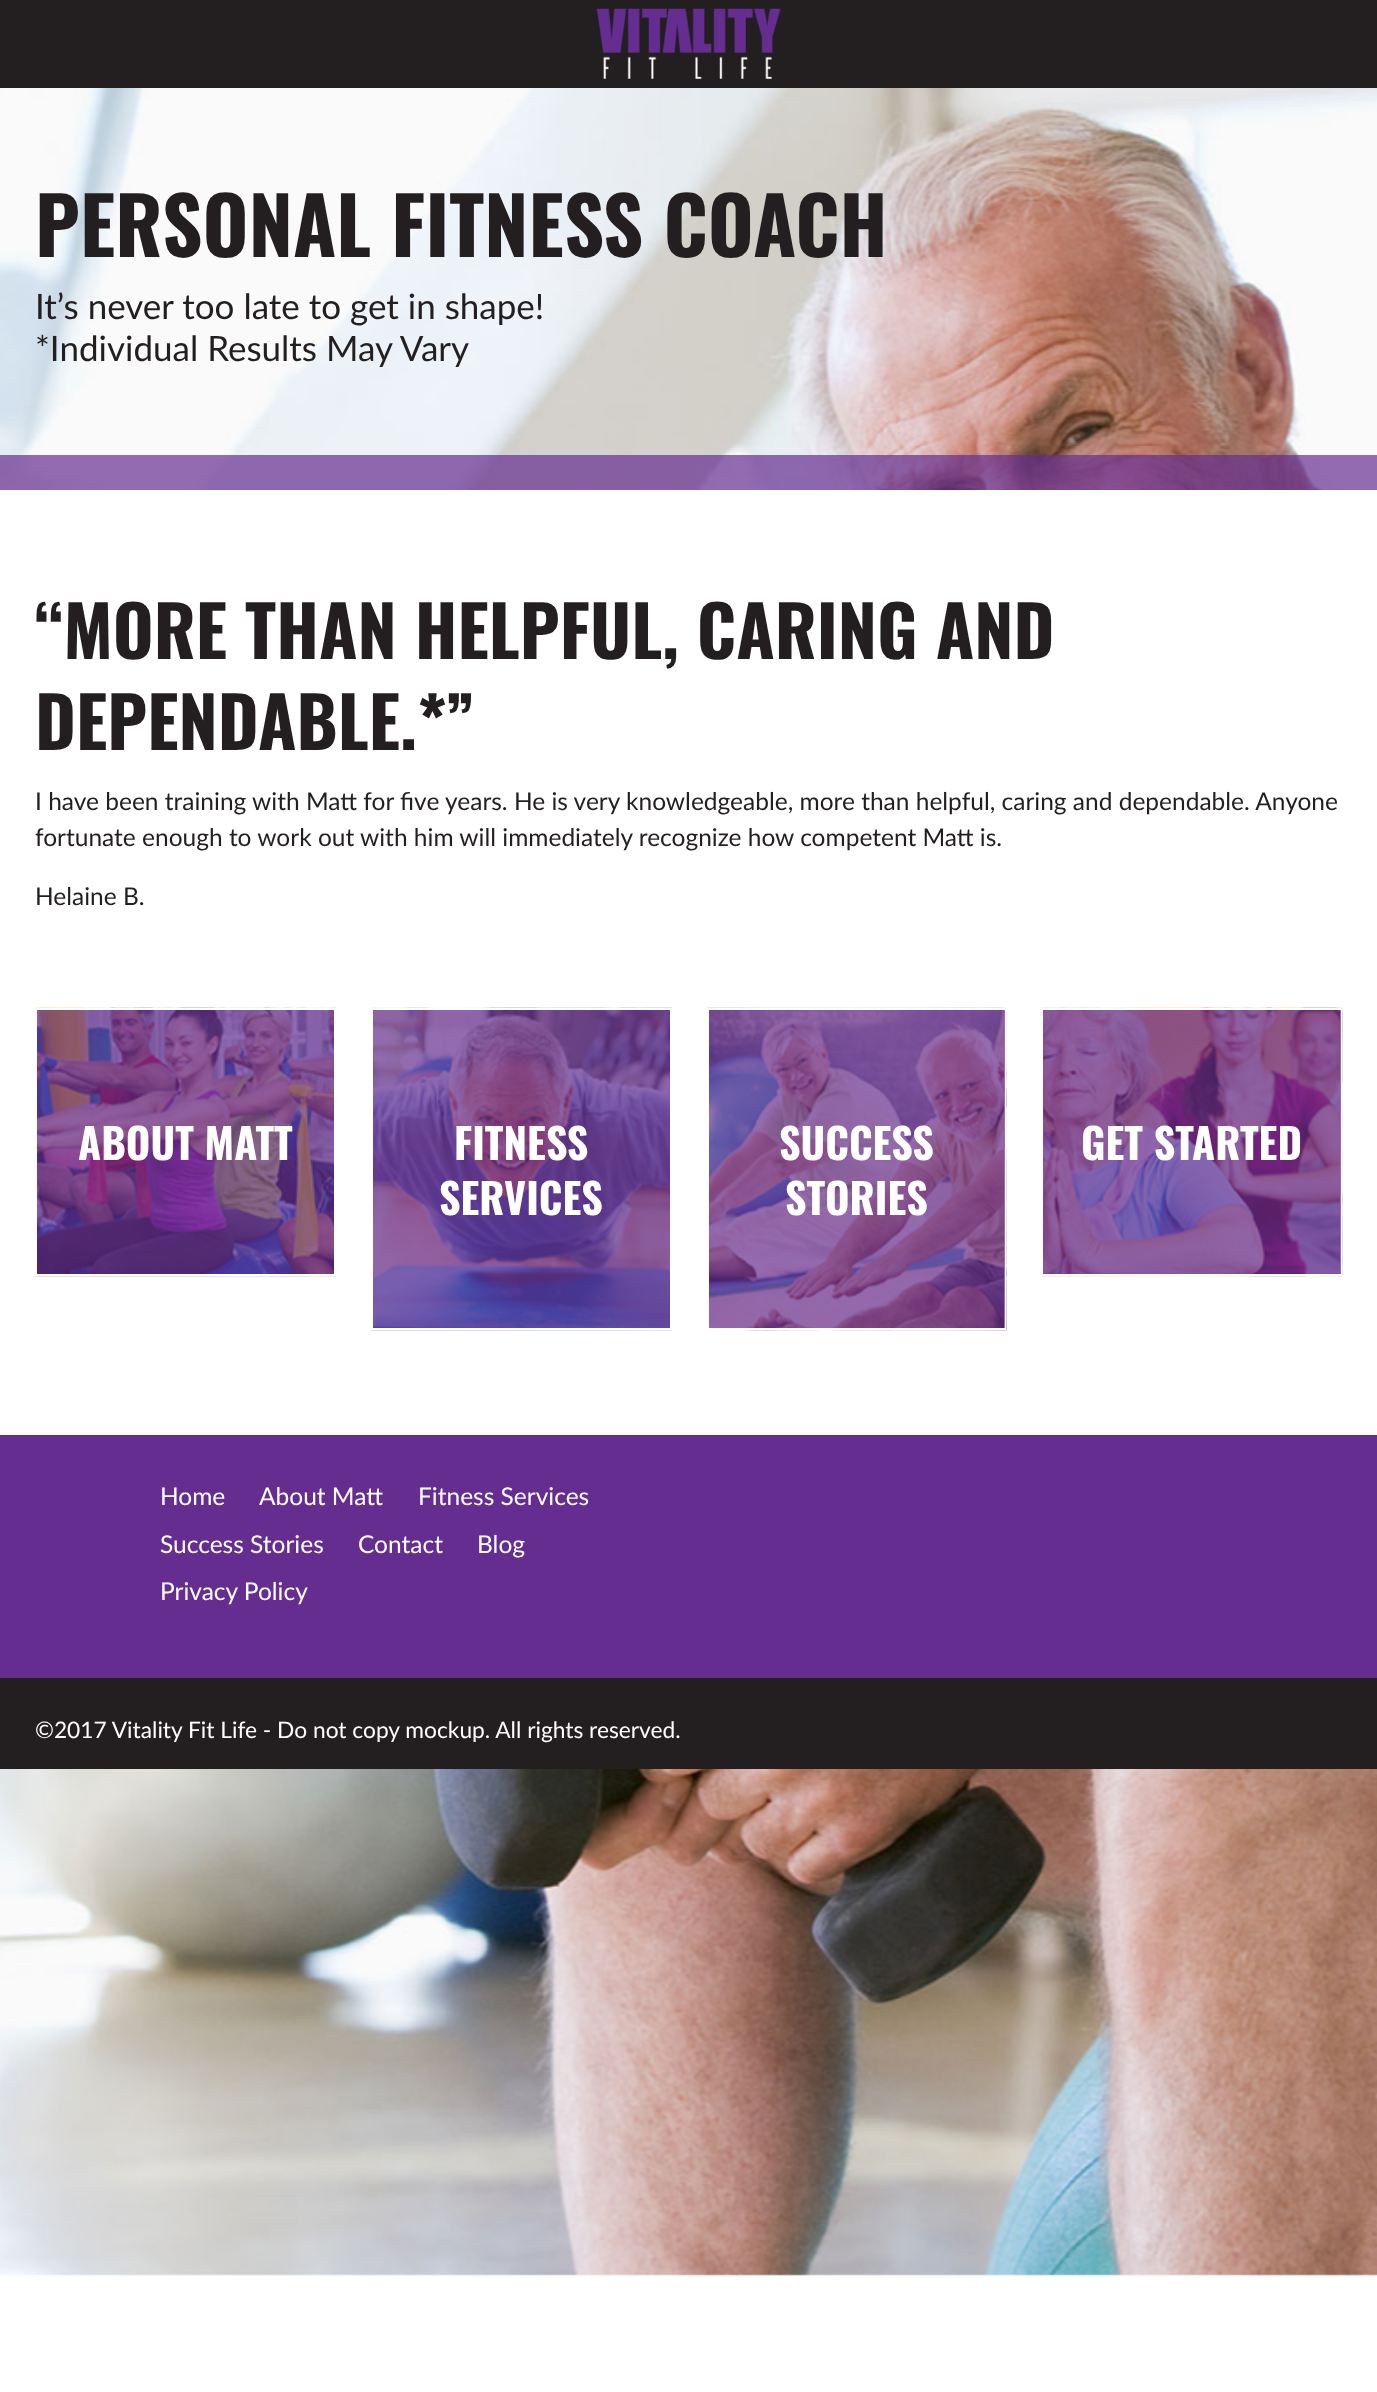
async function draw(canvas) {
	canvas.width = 1377;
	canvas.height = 2392;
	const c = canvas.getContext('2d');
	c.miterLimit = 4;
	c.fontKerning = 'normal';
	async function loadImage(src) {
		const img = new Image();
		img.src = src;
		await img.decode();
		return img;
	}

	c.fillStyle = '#fff';
	c.fillRect(0, 0, 1377, 2392);
	c.drawImage(await loadImage('img1.png'), 0, 88, 1377, 2188);
	c.fillStyle = '#231f20';
	c.fillRect(0, 0, 1377, 88);
	c.drawImage(await loadImage('img2.png'), 596, 8, 185, 71);
	c.fillStyle = '#652d90b3';
	c.fillRect(0, 455, 1377, 35);
	c.font = 'bold 78.75px Oswald';
	c.fillStyle = '#231f20';
	c.fillText('PERSONAL FITNESS COACH', 35, 257);
	c.font = '35px Lato';
	c.fillText('It’s never too late to get in shape!', 35, 319);
	c.fillText('*Individual Results May Vary', 35, 361);
	c.fillStyle = '#fff';
	c.fillRect(0, 490, 1377, 945);
	c.font = 'bold 70px Oswald';
	c.fillStyle = '#231f20';
	c.fillText('“MORE THAN HELPFUL, CARING AND', 35, 659);
	c.fillText('DEPENDABLE.*”', 35, 750);
	c.font = '24.5px Lato';
	for (const [text, x, y] of [
		['I have been training with Matt for five years. He is very knowledgeable, more than helpful, caring and dependable. Anyone', 35, 810],
		['fortunate enough to work out with him will immediately recognize how competent Matt is.', 35, 846],
		['Helaine B.', 35, 905],
	]) {
		c.fillText(text, x, y);
	}
	c.drawImage(await loadImage('img3.png'), 35, 1007, 301, 270);
	c.strokeStyle = '#fff';
	c.lineWidth = 2;
	c.strokeRect(36, 1009, 299, 266);
	c.font = 'bold 42px Oswald';
	c.fillStyle = '#fff';
	c.fillText('ABOUT MATT', 78, 1160);
	c.drawImage(await loadImage('img4.png'), 371, 1007, 301, 324);
	c.strokeRect(372, 1009, 299, 320);
	c.fillText('FITNESS', 454, 1160);
	c.fillText('SERVICES', 439, 1215);
	c.drawImage(await loadImage('img5.png'), 707, 1007, 300, 324);
	c.strokeRect(708, 1009, 297, 320);
	c.fillStyle = '#652d90b3';
	c.fillRect(709, 1010, 296, 318);
	c.fillStyle = '#fff';
	c.fillText('SUCCESS', 779, 1160);
	c.fillText('STORIES', 785, 1215);
	c.drawImage(await loadImage('img6.png'), 1041, 1007, 302, 270);
	c.strokeRect(1042, 1009, 299, 266);
	c.fillStyle = '#652d90b3';
	c.fillRect(1043, 1010, 298, 264);
	c.fillStyle = '#fff';
	c.fillText('GET STARTED', 1081, 1160);
	c.fillStyle = '#652d90';
	c.fillRect(0, 1435, 1377, 243);
	c.font = '24.5px Lato';
	c.fillStyle = '#fff';
	for (const [text, x, y] of [
		['Home', 160, 1505],
		['About Matt', 259, 1505],
		['Fitness Services', 418, 1505],
		['Success Stories', 160, 1553],
		['Contact', 358, 1553],
		['Blog', 477, 1553],
		['Privacy Policy', 160, 1600],
	]) {
		c.fillText(text, x, y);
	}
	c.fillStyle = '#231f20';
	c.fillRect(0, 1678, 1377, 91);
	c.font = '22.75px Lato';
	c.fillStyle = '#fff';
	c.fillText('©2017 Vitality Fit Life - Do not copy mockup. All rights reserved.', 35, 1738);
}

draw(document.querySelector('canvas'));
